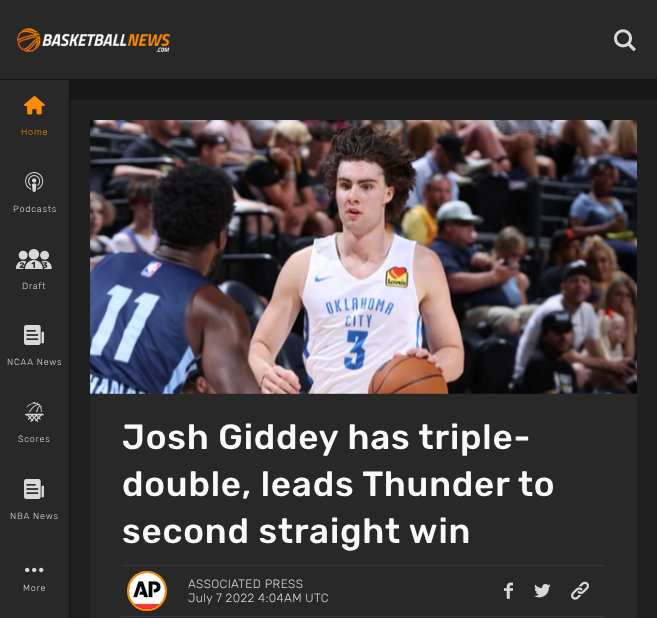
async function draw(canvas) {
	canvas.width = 657;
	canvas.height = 618;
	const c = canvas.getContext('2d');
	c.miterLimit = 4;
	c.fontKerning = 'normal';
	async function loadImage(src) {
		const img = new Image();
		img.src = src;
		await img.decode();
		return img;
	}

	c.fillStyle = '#181818';
	c.fillRect(0, 0, 657, 618);
	c.fillStyle = '#282828';
	c.fillRect(0, 0, 657, 79);
	c.fillStyle = '#141414';
	c.fillRect(0, 79, 657, 1);
	c.drawImage(await loadImage('img1.png'), 17, 28, 153, 24);
	c.drawImage(await loadImage('img2.png'), 614, 29, 22, 23);
	c.fillStyle = '#282828';
	c.fillRect(0, 80, 69, 538);
	c.fillStyle = '#141414';
	c.fillRect(69, 80, 1, 538);
	c.drawImage(await loadImage('img3.png'), 24, 95, 21, 20);
	c.letterSpacing = '0.8px';
	c.font = '300 9px Rubik';
	c.fillStyle = '#ff8a00';
	c.fillText('Home', 21, 135);
	c.drawImage(await loadImage('img4.png'), 25, 172, 19, 20);
	c.fillStyle = '#d8d8d8';
	c.fillText('Podcasts', 13, 212);
	c.drawImage(await loadImage('img5.png'), 16, 249, 36, 20);
	c.fillText('Draft', 22, 289);
	c.drawImage(await loadImage('img6.png'), 24, 325, 20, 20);
	c.fillText('NCAA News', 7, 365);
	c.drawImage(await loadImage('img7.png'), 25, 402, 19, 20);
	c.fillText('Scores', 18, 442);
	c.drawImage(await loadImage('img6.png'), 24, 479, 20, 20);
	c.fillText('NBA News', 10, 519);
	c.drawImage(await loadImage('img8.png'), 25, 567, 19, 6);
	c.fillText('More', 23, 591);
	c.fillStyle = '#202020';
	c.fillRect(70, 100, 587, 518);
	c.fillStyle = '#282828';
	c.fillRect(90, 393, 547, 225);
	c.drawImage(await loadImage('img9.png'), 90, 120, 547, 274);
	c.font = '500 35px Rubik';
	c.fillStyle = '#f9f9f9';
	for (const [text, x, y] of [
		['Josh Giddey has triple-', 122, 449],
		['double, leads Thunder to', 122, 496],
		['second straight win', 122, 543],
	]) {
		c.fillText(text, x, y);
	}
	c.fillStyle = '#383838';
	c.fillRect(122, 565, 483, 1);
	c.fillRect(122, 616, 483, 1);
	c.beginPath();
	c.arc(147, 591, 19, 0, 2 * Math.PI);
	c.strokeStyle = '#ff8a00';
	c.lineWidth = 2;
	c.stroke();
	c.drawImage(await loadImage('img10.png'), 129, 573, 36, 36);
	c.letterSpacing = '0.35px';
	c.font = '300 12px Rubik';
	c.fillStyle = '#d8d8d8';
	c.fillText('ASSOCIATED PRESS', 188, 588);
	c.fillText('July 7 2022 4:04AM UTC', 188, 602);
	c.drawImage(await loadImage('img11.png'), 504, 582, 9, 17);
	c.drawImage(await loadImage('img12.png'), 534, 584, 17, 14);
	c.drawImage(await loadImage('img13.png'), 571, 581, 18, 19);
}

draw(document.querySelector('canvas'));
